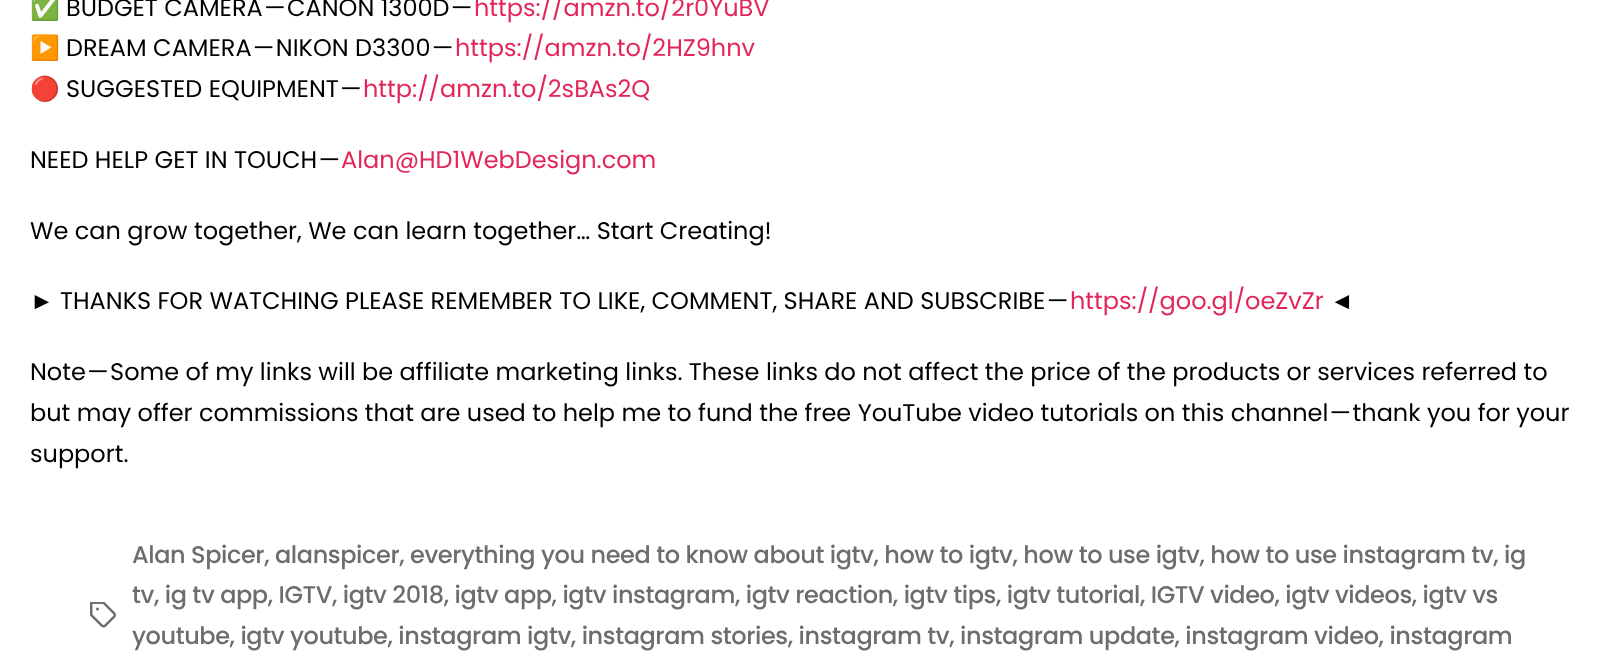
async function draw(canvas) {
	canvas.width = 1620;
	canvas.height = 662;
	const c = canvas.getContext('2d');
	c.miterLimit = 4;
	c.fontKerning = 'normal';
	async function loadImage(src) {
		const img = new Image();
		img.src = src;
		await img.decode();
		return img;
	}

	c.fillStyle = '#fff';
	c.fillRect(0, 0, 1620, 662);
	c.font = '24px Noto Color Emoji';
	c.fillStyle = '#000';
	c.fillText('✅', 30, 16);
	c.font = '24px Poppins';
	c.fillText('BUDGET CAMERA — CANON 1300D —', 66, 16);
	c.fillStyle = '#e22658';
	c.fillText('https://amzn.to/2r0YuBV', 474, 16);
	c.font = '24px Noto Color Emoji';
	c.fillStyle = '#000';
	c.fillText('▶️', 30, 56);
	c.font = '24px Poppins';
	c.fillText('DREAM CAMERA — NIKON D3300 —', 66, 56);
	c.fillStyle = '#e22658';
	c.fillText('https://amzn.to/2HZ9hnv', 455, 56);
	c.font = '24px Noto Color Emoji';
	c.fillStyle = '#000';
	c.fillText('🔴', 30, 97);
	c.font = '24px Poppins';
	c.fillText('SUGGESTED EQUIPMENT —', 66, 97);
	c.fillStyle = '#e22658';
	c.fillText('http://amzn.to/2sBAs2Q', 363, 97);
	c.fillStyle = '#000';
	c.fillText('NEED HELP GET IN TOUCH —', 30, 168);
	c.fillStyle = '#e22658';
	c.fillText('Alan@HD1WebDesign.com', 341, 168);
	c.fillStyle = '#000';
	c.fillText('We can grow together, We can learn together… Start Creating!', 30, 239);
	c.font = '24px Liberation Sans';
	c.fillText('►', 30, 309);
	c.font = '24px Poppins';
	c.fillText('THANKS FOR WATCHING PLEASE REMEMBER TO LIKE, COMMENT, SHARE AND SUBSCRIBE', 60, 309);
	c.fillText('—', 1047, 309);
	c.fillStyle = '#e22658';
	c.fillText('https://goo.gl/oeZvZr', 1070, 309);
	c.font = '24px Liberation Sans';
	c.fillStyle = '#000';
	c.fillText('◄', 1330, 309);
	c.font = '24px Poppins';
	for (const [text, x, y] of [
		['Note — Some of my links will be affiliate marketing links. These links do not affect the price of the products or services referred to', 30, 380],
		['but may offer commissions that are used to help me to fund the free YouTube video tutorials on this channel — thank you for your', 30, 421],
		['support.', 30, 462],
	]) {
		c.fillText(text, x, y);
	}
	c.drawImage(await loadImage('img1.png'), 90, 602, 26, 26);
	c.letterSpacing = '-0.41px';
	c.font = '500 24px Poppins';
	c.fillStyle = '#6d6d6d';
	for (const [text, x, y] of [
		['Alan Spicer, alanspicer, everything you need to know about igtv, how to igtv, how to use igtv, how to use instagram tv, ig', 132, 563],
		['tv, ig tv app, IGTV, igtv 2018, igtv app, igtv instagram, igtv reaction, igtv tips, igtv tutorial, IGTV video, igtv videos, igtv vs', 132, 603],
		['youtube, igtv youtube, instagram igtv, instagram stories, instagram tv, instagram update, instagram video, instagram', 132, 644],
	]) {
		c.fillText(text, x, y);
	}
}

draw(document.querySelector('canvas'));
